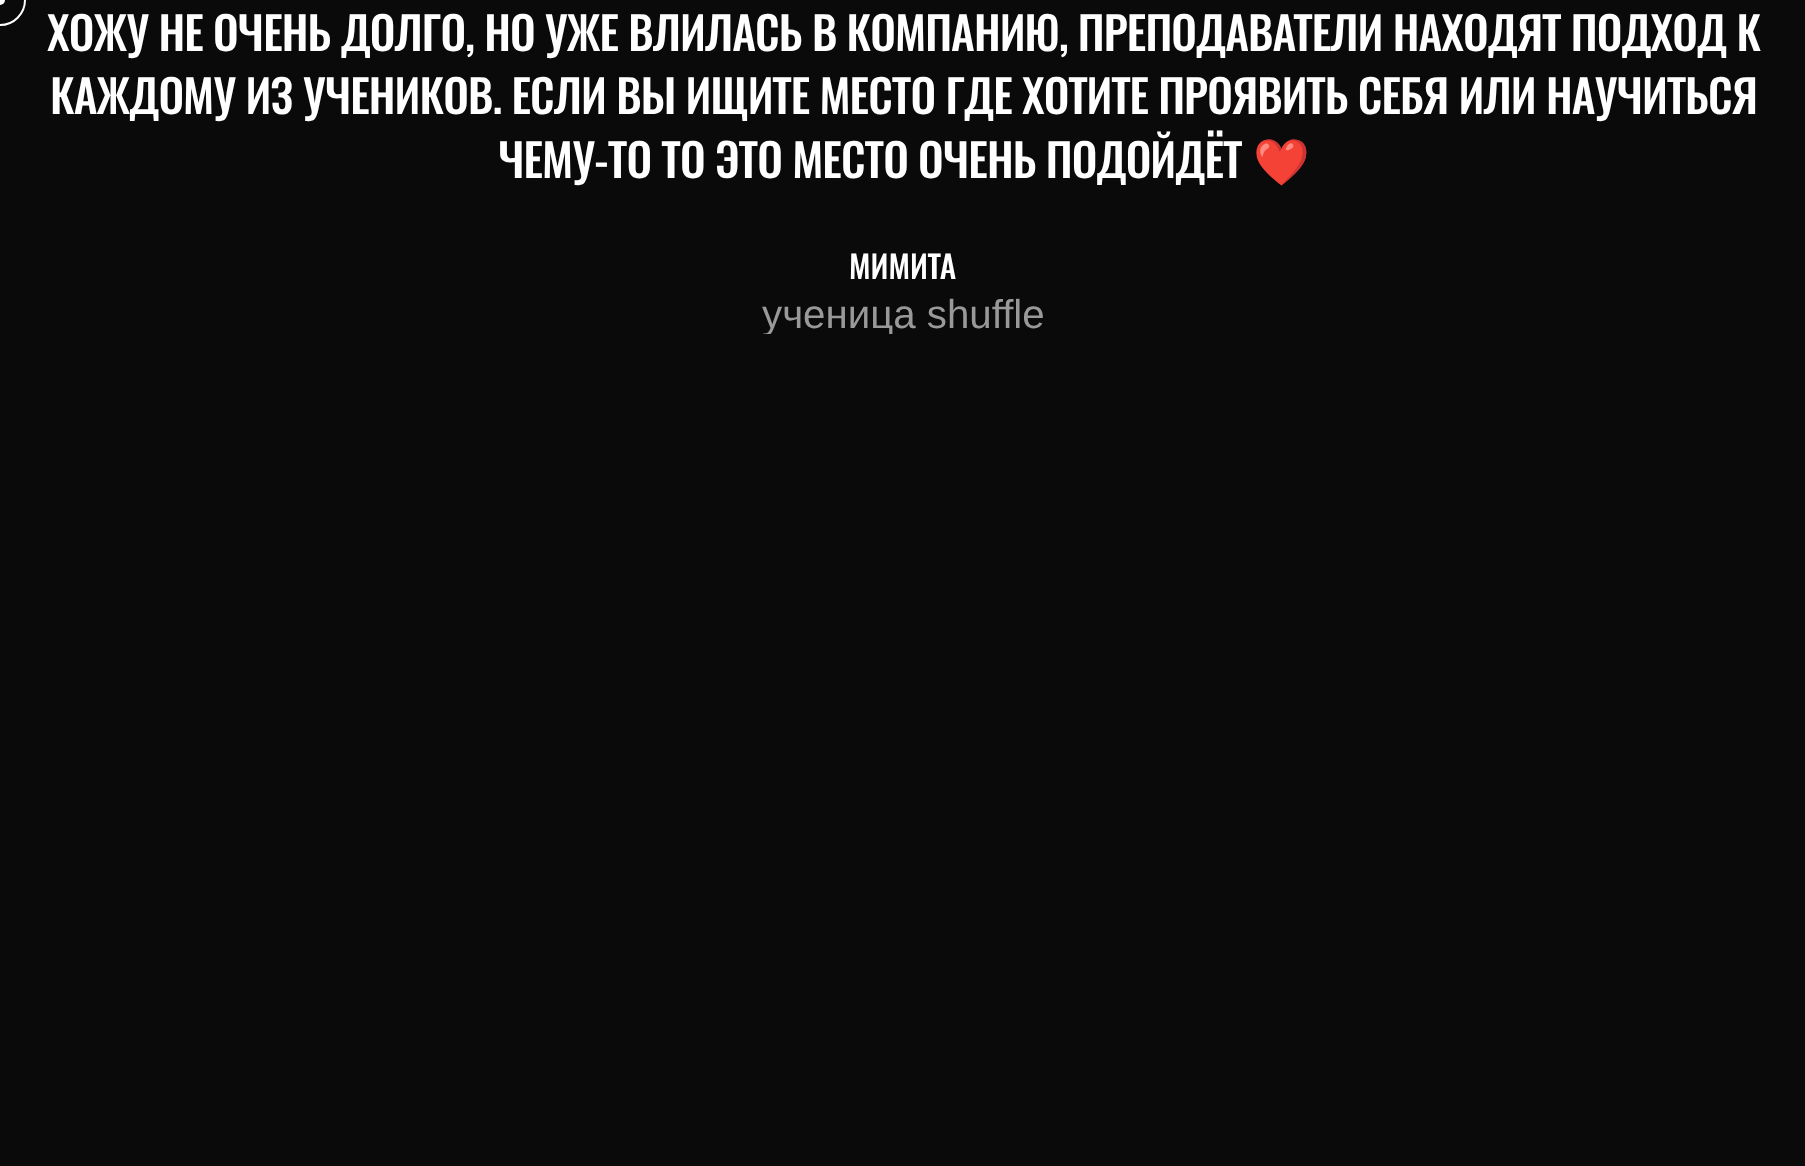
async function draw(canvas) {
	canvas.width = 1805;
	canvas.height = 1166;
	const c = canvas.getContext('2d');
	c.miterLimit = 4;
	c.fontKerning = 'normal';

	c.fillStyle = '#0a0a0a';
	c.fillRect(0, 0, 1805, 1166);
	c.beginPath();
	c.arc(0, 0, 25, 0, 2 * Math.PI);
	c.strokeStyle = '#fff';
	c.lineWidth = 2;
	c.stroke();
	c.fillStyle = '#fff';
	c.beginPath();
	c.arc(0, 0, 5, 0, 2 * Math.PI);
	c.fill();
	c.letterSpacing = '-0.9px';
	c.font = '500 45.5px Oswald';
	for (const [text, x, y] of [
		['ХОЖУ НЕ ОЧЕНЬ ДОЛГО, НО УЖЕ ВЛИЛАСЬ В КОМПАНИЮ, ПРЕПОДАВАТЕЛИ НАХОДЯТ ПОДХОД К', 47, 51],
		['КАЖДОМУ ИЗ УЧЕНИКОВ. ЕСЛИ ВЫ ИЩИТЕ МЕСТО ГДЕ ХОТИТЕ ПРОЯВИТЬ СЕБЯ ИЛИ НАУЧИТЬСЯ', 50, 114],
		['ЧЕМУ-ТО ТО ЭТО МЕСТО ОЧЕНЬ ПОДОЙДЁТ', 498, 178],
	]) {
		c.fillText(text, x, y);
	}
	c.font = '45.5px Noto Color Emoji';
	c.fillText('❤️', 1253, 178);
	c.letterSpacing = '0px';
	c.font = '500 31.5px Oswald';
	c.fillText('МИМИТА', 849, 279);
	c.save();
	c.beginPath();
	c.rect(0, 0, 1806, 334);
	c.clip();
	c.font = '40.25px Liberation Sans';
	c.fillStyle = '#999';
	c.fillText('ученица shuffle', 762, 328);
	c.restore();
}

draw(document.querySelector('canvas'));
